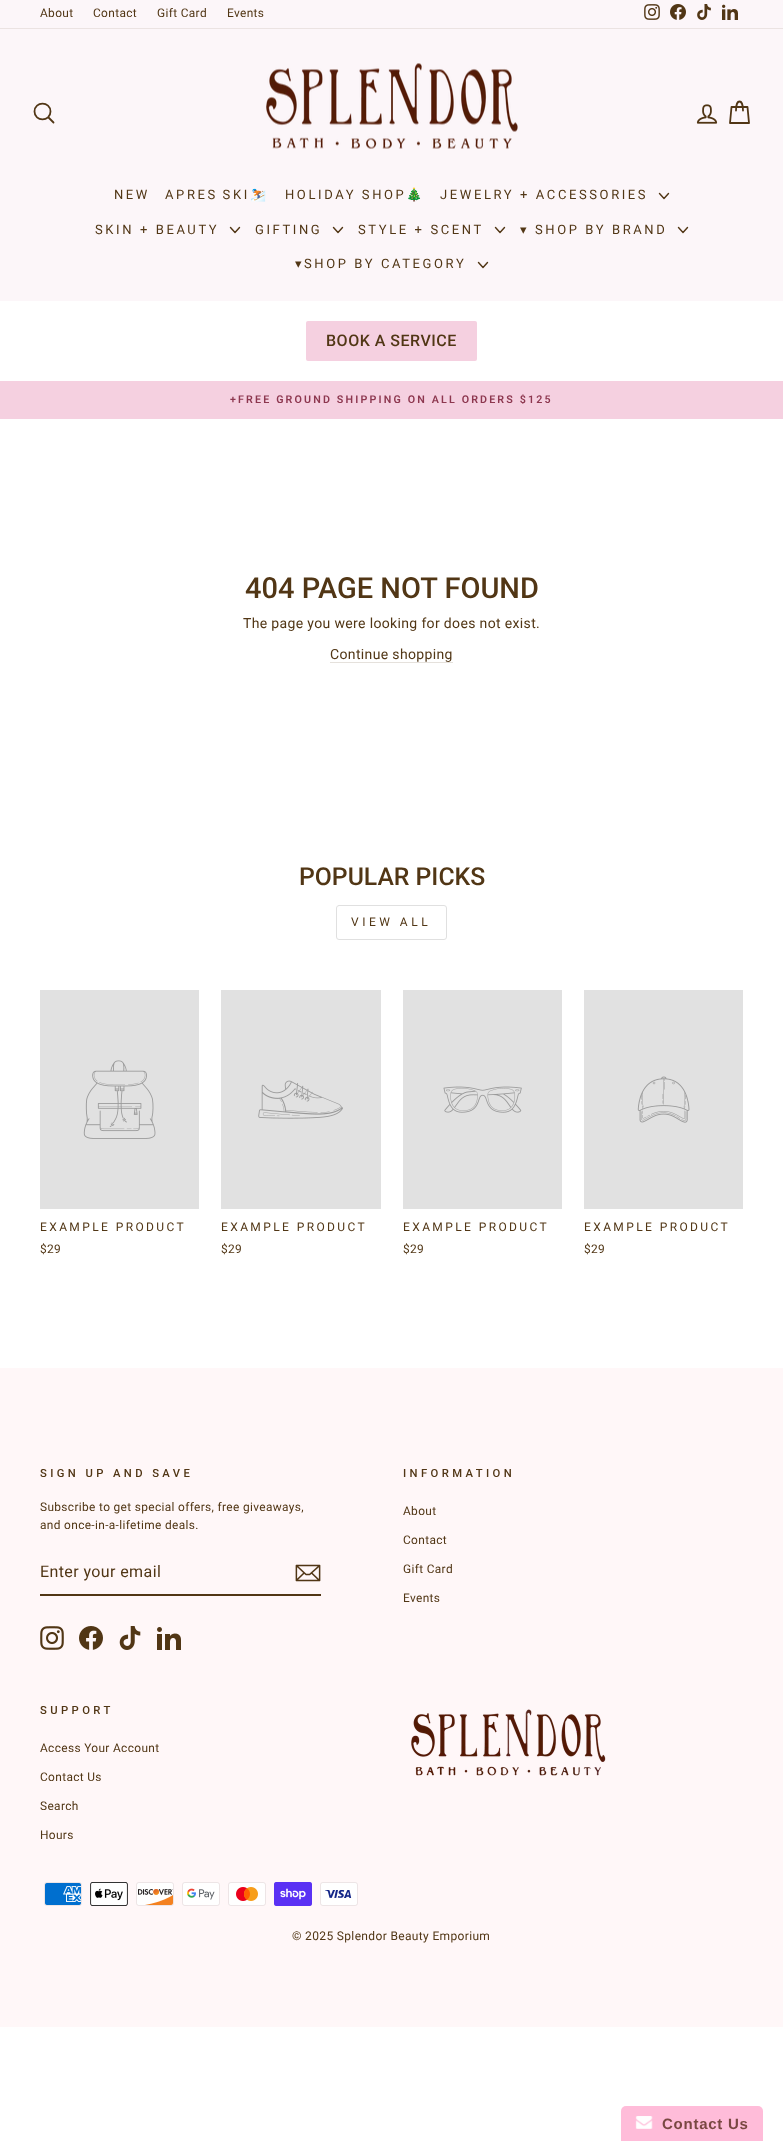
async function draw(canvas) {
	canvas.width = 783;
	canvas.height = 2141;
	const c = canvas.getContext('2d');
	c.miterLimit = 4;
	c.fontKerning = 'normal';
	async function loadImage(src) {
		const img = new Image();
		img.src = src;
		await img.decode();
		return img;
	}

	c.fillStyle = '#fff';
	c.fillRect(0, 0, 783, 2141);
	c.fillStyle = '#fcf6f9';
	c.fillRect(0, 0, 783, 28);
	c.letterSpacing = '0.35px';
	c.font = '11.9px Roboto';
	c.fillStyle = '#513615';
	for (const [text, x, y] of [
		['About', 40, 17],
		['Contact', 93, 17],
		['Gift Card', 157, 17],
		['Events', 227, 17],
	]) {
		c.fillText(text, x, y);
	}
	c.drawImage(await loadImage('img1.png'), 644, 4, 16, 16);
	c.drawImage(await loadImage('img2.png'), 670, 4, 16, 16);
	c.drawImage(await loadImage('img3.png'), 697, 4, 14, 16);
	c.drawImage(await loadImage('img4.png'), 722, 4, 16, 16);
	c.fillStyle = '#fcf6f9';
	c.fillRect(0, 29, 783, 272);
	c.fillStyle = '#ebe3e2';
	c.fillRect(0, 28, 783, 1);
	c.beginPath();
	c.moveTo(50.5, 111.5);
	c.bezierCurveTo(50.5, 122, 34.5, 122, 34.5, 111.5);
	c.bezierCurveTo(34.5, 101, 50.5, 101, 50.5, 111.5);
	c.closePath();
	c.moveTo(53.5, 122.5);
	c.lineTo(48.5, 117.5);
	c.strokeStyle = '#513615';
	c.lineWidth = 1.8;
	c.lineCap = 'round';
	c.lineJoin = 'round';
	c.stroke();
	c.drawImage(await loadImage('img5.png'), 266, 63, 252, 86);
	c.drawImage(await loadImage('img6.png'), 696, 104, 22, 20);
	c.beginPath();
	c.moveTo(736, 110.5);
	c.bezierCurveTo(736, 98.5, 743, 98.5, 743, 110.5);
	c.moveTo(731.5, 107);
	c.lineTo(747.5, 107);
	c.lineTo(749, 123);
	c.lineTo(730, 123);
	c.closePath();
	c.stroke();
	c.letterSpacing = '2.6px';
	c.font = '13px Roboto';
	c.fillStyle = '#513615';
	c.fillText('NEW', 114, 199);
	c.wordSpacing = '-1px';
	c.fillText('APRES SKI', 165, 199);
	c.wordSpacing = '0px';
	c.font = '13px Noto Color Emoji';
	c.fillText('⛷️', 250, 199);
	c.font = '13px Roboto';
	c.fillText('HOLIDAY SHOP', 285, 199);
	c.font = '13px Noto Color Emoji';
	c.fillText('🎄', 406, 199);
	c.font = '13px Roboto';
	c.fillText('JEWELRY + ACCESSORIES', 440, 199);
	c.beginPath();
	c.moveTo(659.5, 193.5);
	c.lineTo(664, 198.5);
	c.lineTo(668.5, 193.5);
	c.lineWidth = 1.4;
	c.stroke();
	c.fillText('SKIN + BEAUTY', 95, 234);
	c.beginPath();
	c.moveTo(230.5, 227.5);
	c.lineTo(235, 232.5);
	c.lineTo(239.5, 227.5);
	c.stroke();
	c.fillText('GIFTING', 255, 234);
	c.beginPath();
	c.moveTo(333.5, 227.5);
	c.lineTo(338, 232.5);
	c.lineTo(342.5, 227.5);
	c.stroke();
	c.fillText('STYLE + SCENT', 358, 234);
	c.beginPath();
	c.moveTo(495.5, 227.5);
	c.lineTo(500, 232.5);
	c.lineTo(504.5, 227.5);
	c.stroke();
	c.font = '13px DejaVu Sans';
	c.fillText('▾', 520, 234);
	c.font = '13px Roboto';
	c.fillText('SHOP BY BRAND', 535, 234);
	c.beginPath();
	c.moveTo(678.5, 227.5);
	c.lineTo(683, 232.5);
	c.lineTo(687.5, 227.5);
	c.stroke();
	c.font = '13px DejaVu Sans';
	c.fillText('▾', 295, 268);
	c.font = '13px Roboto';
	c.fillText('SHOP BY CATEGORY', 304, 268);
	c.beginPath();
	c.moveTo(478.5, 262.5);
	c.lineTo(483, 267.5);
	c.lineTo(487.5, 262.5);
	c.stroke();
	c.fillStyle = '#f5d0e0';
	c.beginPath();
	c.roundRect(306, 321, 171, 40, 2);
	c.fill();
	c.letterSpacing = '0.5px';
	c.font = '500 16px Roboto';
	c.fillStyle = '#513615';
	c.fillText('BOOK A SERVICE', 326, 346);
	c.fillStyle = '#f5d0e0';
	c.fillRect(0, 381, 783, 38);
	c.letterSpacing = '2.15px';
	c.font = '600 10.7px Roboto';
	c.fillStyle = '#8d374f';
	c.fillText('+FREE GROUND SHIPPING ON ALL ORDERS $125', 230, 403);
	c.letterSpacing = '0px';
	c.font = '500 29px Roboto';
	c.fillStyle = '#513615';
	c.fillText('404 PAGE NOT FOUND', 245, 598);
	c.letterSpacing = '0.35px';
	c.font = '14px Roboto';
	c.fillText('The page you were looking for does not exist.', 243, 628);
	c.fillText('Continue shopping', 330, 659);
	c.fillStyle = '#e5e1dc';
	c.fillRect(330, 662, 123, 1);
	c.letterSpacing = '0px';
	c.font = '500 24.75px Roboto';
	c.fillStyle = '#513615';
	c.fillText('POPULAR PICKS', 299, 885);
	c.beginPath();
	c.roundRect(336.5, 905.5, 110, 34, 2.5);
	c.strokeStyle = '#e0e0e0';
	c.lineWidth = 1;
	c.lineJoin = 'miter';
	c.stroke();
	c.letterSpacing = '3.5px';
	c.font = '12px Roboto';
	c.fillText('VIEW ALL', 351, 926);
	c.fillStyle = '#e1e1e1';
	c.fillRect(40, 990, 159, 219);
	c.drawImage(await loadImage('img7.png'), 83, 1060, 73, 79);
	c.letterSpacing = '2.4px';
	c.fillStyle = '#513615';
	c.fillText('EXAMPLE PRODUCT', 40, 1231);
	c.letterSpacing = '0.35px';
	c.font = '11.9px Roboto';
	c.fillText('$29', 40, 1253);
	c.fillStyle = '#e1e1e1';
	c.fillRect(221, 990, 160, 219);
	c.drawImage(await loadImage('img8.png'), 258, 1080, 85, 39);
	c.letterSpacing = '2.4px';
	c.font = '12px Roboto';
	c.fillStyle = '#513615';
	c.fillText('EXAMPLE PRODUCT', 221, 1231);
	c.letterSpacing = '0.35px';
	c.font = '11.9px Roboto';
	c.fillText('$29', 221, 1253);
	c.fillStyle = '#e1e1e1';
	c.fillRect(403, 990, 159, 219);
	c.drawImage(await loadImage('img9.png'), 443, 1086, 79, 27);
	c.letterSpacing = '2.4px';
	c.font = '12px Roboto';
	c.fillStyle = '#513615';
	c.fillText('EXAMPLE PRODUCT', 403, 1231);
	c.letterSpacing = '0.35px';
	c.font = '11.9px Roboto';
	c.fillText('$29', 403, 1253);
	c.fillStyle = '#e1e1e1';
	c.fillRect(584, 990, 159, 219);
	c.drawImage(await loadImage('img10.png'), 637, 1076, 53, 47);
	c.letterSpacing = '2.4px';
	c.font = '12px Roboto';
	c.fillStyle = '#513615';
	c.fillText('EXAMPLE PRODUCT', 584, 1231);
	c.letterSpacing = '0.35px';
	c.font = '11.9px Roboto';
	c.fillText('$29', 584, 1253);
	c.fillStyle = '#fff7f8';
	c.fillRect(0, 1368, 783, 659);
	c.letterSpacing = '3.4px';
	c.font = '500 11.25px Roboto';
	c.fillStyle = '#513615';
	c.fillText('SIGN UP AND SAVE', 40, 1477);
	c.letterSpacing = '0.35px';
	c.font = '11.9px Roboto';
	c.fillText('Subscribe to get special offers, free giveaways,', 40, 1511);
	c.fillText('and once-in-a-lifetime deals.', 40, 1529);
	c.fillRect(40, 1594, 281, 2);
	c.letterSpacing = '0.4px';
	c.font = '16px Roboto';
	c.fillText('Enter your email', 40, 1577);
	c.drawImage(await loadImage('img11.png'), 295, 1564, 26, 18);
	c.drawImage(await loadImage('img12.png'), 40, 1626, 24, 24);
	c.drawImage(await loadImage('img13.png'), 79, 1626, 24, 24);
	c.drawImage(await loadImage('img14.png'), 119, 1626, 22, 24);
	c.drawImage(await loadImage('img15.png'), 157, 1627, 24, 23);
	c.letterSpacing = '3.4px';
	c.font = '500 11.25px Roboto';
	c.fillText('INFORMATION', 403, 1477);
	c.letterSpacing = '0.35px';
	c.font = '11.9px Roboto';
	for (const [text, x, y] of [
		['About', 403, 1515],
		['Contact', 403, 1544],
		['Gift Card', 403, 1573],
		['Events', 403, 1602],
	]) {
		c.fillText(text, x, y);
	}
	c.letterSpacing = '3.4px';
	c.font = '500 11.25px Roboto';
	c.fillText('SUPPORT', 40, 1714);
	c.letterSpacing = '0.35px';
	c.font = '11.9px Roboto';
	for (const [text, x, y] of [
		['Access Your Account', 40, 1752],
		['Contact Us', 40, 1781],
		['Search', 40, 1810],
		['Hours', 40, 1839],
	]) {
		c.fillText(text, x, y);
	}
	c.drawImage(await loadImage('img16.png'), 411, 1709, 195, 67);
	c.drawImage(await loadImage('img17.png'), 44, 1882, 38, 24);
	c.drawImage(await loadImage('img18.png'), 90, 1882, 38, 24);
	c.drawImage(await loadImage('img19.png'), 136, 1882, 38, 24);
	c.drawImage(await loadImage('img20.png'), 182, 1882, 38, 24);
	c.drawImage(await loadImage('img21.png'), 228, 1882, 38, 24);
	c.drawImage(await loadImage('img22.png'), 274, 1882, 38, 24);
	c.drawImage(await loadImage('img23.png'), 320, 1882, 38, 24);
	c.font = '12px Roboto';
	c.fillText('© 2025 Splendor Beauty Emporium', 292, 1940);
	c.fillStyle = '#ffbcd9';
	c.beginPath();
	c.roundRect(621, 2106, 142, 35, [5, 5, 0, 0]);
	c.fill();
	c.drawImage(await loadImage('img24.png'), 635, 2116, 18, 13);
	c.letterSpacing = '0.75px';
	c.font = 'bold 15px Liberation Sans';
	c.fillStyle = '#794842';
	c.fillText('Contact Us', 662, 2129);
}

draw(document.querySelector('canvas'));
